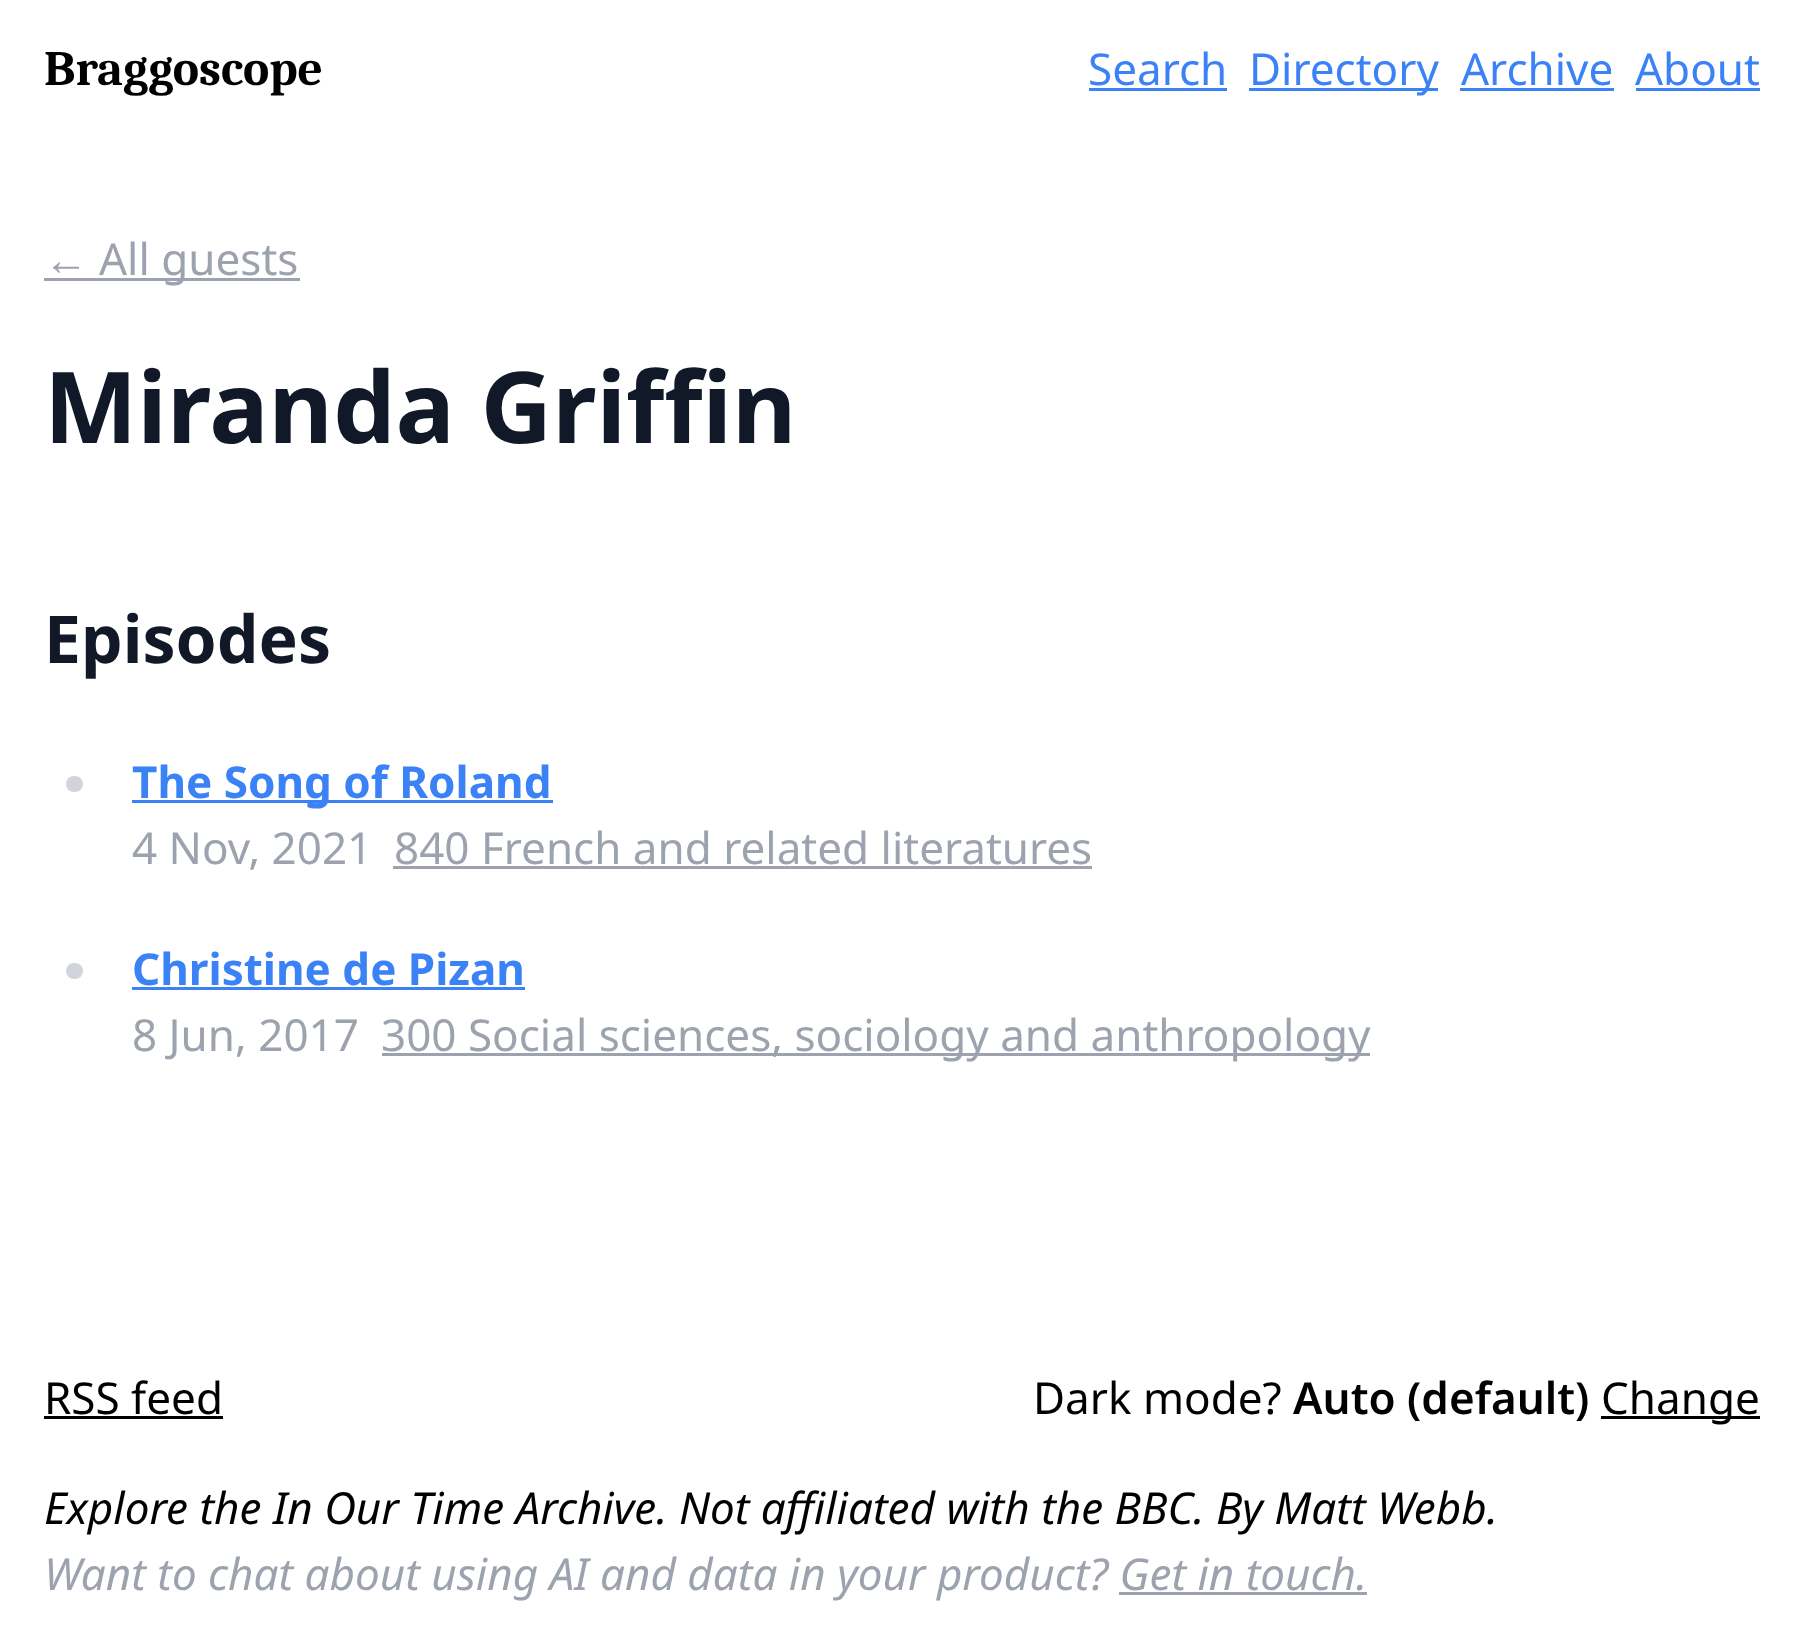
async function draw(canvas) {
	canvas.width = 1804;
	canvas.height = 1643;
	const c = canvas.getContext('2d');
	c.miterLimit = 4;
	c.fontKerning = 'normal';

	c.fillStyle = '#fff';
	c.fillRect(0, 0, 1804, 1643);
	c.font = 'bold 49.5px Caladea';
	c.fillStyle = '#000';
	c.fillText('Braggoscope', 44, 85);
	c.font = '44px Noto Sans';
	c.fillStyle = '#3b82f6';
	c.fillText('Search', 1088, 85);
	c.fillRect(1089, 88, 138, 3);
	c.fillRect(1249, 88, 189, 3);
	c.fillText('Directory', 1249, 85);
	c.fillText('Archive', 1461, 85);
	c.fillRect(1460, 88, 154, 3);
	c.fillText('About', 1635, 85);
	c.fillRect(1636, 88, 124, 3);
	c.font = '44px Liberation Sans';
	c.fillStyle = '#9ca3af';
	c.fillText('←', 44, 275);
	c.fillRect(44, 278, 256, 3);
	c.font = '44px Noto Sans';
	c.fillText('All guests', 99, 275);
	c.font = 'bold 99px Noto Sans';
	c.fillStyle = '#111827';
	c.fillText('Miranda Griffin', 44, 443);
	c.font = 'bold 66px Noto Sans';
	c.fillText('Episodes', 44, 663);
	c.fillStyle = '#d1d5db';
	c.beginPath();
	c.roundRect(66, 776, 17, 16, 8);
	c.fill();
	c.fillStyle = '#3b82f6';
	c.fillRect(132, 800, 421, 3);
	c.font = 'bold 44px Noto Sans';
	c.fillText('The Song of Roland', 132, 798);
	c.font = '44px Noto Sans';
	c.fillStyle = '#9ca3af';
	c.fillText('4 Nov, 2021', 132, 864);
	c.fillText('840 French and related literatures', 394, 864);
	c.fillRect(393, 866, 699, 3);
	c.fillStyle = '#d1d5db';
	c.beginPath();
	c.roundRect(66, 963, 17, 16, 8);
	c.fill();
	c.font = 'bold 44px Noto Sans';
	c.fillStyle = '#3b82f6';
	c.fillText('Christine de Pizan', 132, 985);
	c.fillRect(132, 987, 393, 3);
	c.font = '44px Noto Sans';
	c.fillStyle = '#9ca3af';
	c.fillText('8 Jun, 2017', 132, 1051);
	c.fillRect(382, 1053, 988, 3);
	c.fillText('300 Social sciences, sociology and anthropology', 381, 1051);
	c.fillStyle = '#000';
	c.fillText('RSS feed', 44, 1414);
	c.fillRect(44, 1416, 179, 3);
	c.fillText('Dark mode?', 1033, 1414);
	c.font = '600 44px Noto Sans';
	c.fillText('Auto (default)', 1293, 1414);
	c.fillRect(1601, 1416, 159, 3);
	c.font = '44px Noto Sans';
	c.fillText('Change', 1601, 1414);
	c.font = 'italic 44px Noto Sans';
	c.fillText('Explore the In Our Time Archive. Not affiliated with the BBC. By Matt Webb.', 44, 1524);
	c.fillStyle = '#9ca3af';
	c.fillText('Want to chat about using AI and data in your product? Get in touch.', 44, 1590);
	c.fillRect(1119, 1592, 248, 3);
}

draw(document.querySelector('canvas'));
